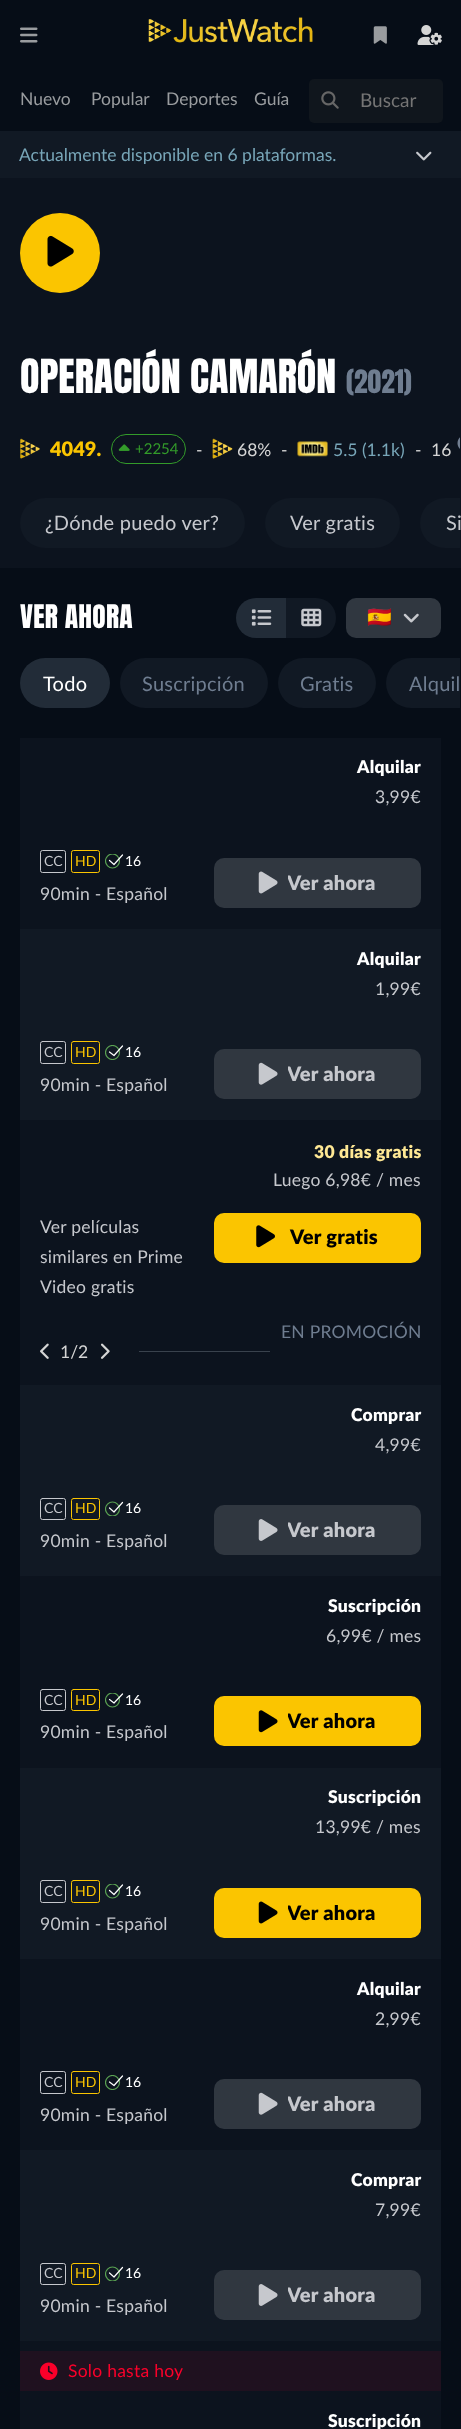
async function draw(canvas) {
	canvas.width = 461;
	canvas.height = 2429;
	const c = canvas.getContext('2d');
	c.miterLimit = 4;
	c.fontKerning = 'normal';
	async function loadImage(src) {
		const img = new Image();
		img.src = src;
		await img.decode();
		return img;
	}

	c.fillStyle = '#060d17';
	c.fillRect(0, 0, 461, 2429);
	c.drawImage(await loadImage('img1.png'), 148, 17, 165, 26);
	c.drawImage(await loadImage('img2.png'), 20, 27, 18, 16);
	c.drawImage(await loadImage('img3.png'), 417, 25, 25, 20);
	c.drawImage(await loadImage('img4.png'), 373, 26, 14, 18);
	c.font = '17.5px Lato';
	c.fillStyle = '#999c9f';
	for (const [text, x, y] of [
		['Nuevo', 20, 105],
		['Popular', 91, 105],
		['Deportes', 166, 105],
		['Guía', 254, 105],
	]) {
		c.fillText(text, x, y);
	}
	c.fillStyle = '#10161d';
	c.beginPath();
	c.roundRect(309, 79, 134, 44, 5);
	c.fill();
	c.drawImage(await loadImage('img5.png'), 321, 91, 18, 18);
	c.font = '19px Lato';
	c.fillStyle = '#757575';
	c.fillText('Buscar', 360, 107);
	c.fillStyle = '#111924';
	c.fillRect(0, 131, 461, 47);
	c.font = '17.5px Lato';
	c.fillStyle = '#78a6b8';
	c.fillText('Actualmente disponible en 6 plataformas.', 19, 161);
	c.drawImage(await loadImage('img6.png'), 416, 151, 16, 10);
	c.fillStyle = '#0c131e';
	c.fillRect(0, 178, 461, 390);
	c.fillStyle = '#fbc500';
	c.beginPath();
	c.arc(60, 253, 40, 0, 2 * Math.PI);
	c.fill();
	c.drawImage(await loadImage('img7.png'), 47, 235, 27, 32);
	c.font = '40px Anton';
	c.fillStyle = '#fff';
	c.fillText('OPERACIÓN CAMARÓN', 20, 393);
	c.font = '27.5px Anton';
	c.fillStyle = '#6f7d90';
	c.fillText('(2021)', 346, 393);
	c.drawImage(await loadImage('img8.png'), 20, 438, 20, 21);
	c.font = '900 20px Lato';
	c.fillStyle = '#fbc500';
	c.fillText('4049.', 50, 456);
	c.beginPath();
	c.roundRect(111.5, 434.5, 74, 29, 14.5);
	c.strokeStyle = '#339b2a';
	c.stroke();
	c.drawImage(await loadImage('img9.png'), 118, 444, 12, 7);
	c.font = '15px Lato';
	c.fillStyle = '#339b2a';
	c.fillText('+2254', 135, 454);
	c.font = '17.5px Lato';
	c.fillStyle = '#d5d5d5';
	c.fillText('-', 196, 456);
	c.drawImage(await loadImage('img10.png'), 212, 438, 21, 21);
	c.fillText('68%', 237, 456);
	c.fillText('-', 281, 456);
	c.drawImage(await loadImage('img11.png'), 297, 441, 31, 16);
	c.fillStyle = '#78a6b8';
	c.fillText('5.5 (1.1k)', 333, 456);
	c.fillStyle = '#d5d5d5';
	c.fillText('-', 415, 456);
	c.fillText('16', 431, 456);
	c.drawImage(await loadImage('img12.png'), 457, 437, 3, 12);
	c.fillStyle = '#111924';
	c.beginPath();
	c.roundRect(20, 498, 225, 50, 25);
	c.fill();
	c.letterSpacing = '0.25px';
	c.font = '20px Lato';
	c.fillStyle = '#c6c8cd';
	c.fillText('¿Dónde puedo ver?', 45, 530);
	c.fillStyle = '#111924';
	c.beginPath();
	c.roundRect(265, 498, 135, 50, 25);
	c.fill();
	c.fillStyle = '#c6c8cd';
	c.fillText('Ver gratis', 290, 530);
	c.fillStyle = '#111924';
	c.beginPath();
	c.roundRect(420, 498, 40, 50, [25, 0, 0, 25]);
	c.fill();
	c.fillStyle = '#c6c8cd';
	c.fillText('Si', 446, 530);
	c.font = '27.5px Anton';
	c.fillStyle = '#fff';
	c.fillText('VER AHORA', 20, 628);
	c.fillStyle = '#222c38';
	c.beginPath();
	c.roundRect(236, 598, 50, 40, [20, 0, 0, 20]);
	c.fill();
	c.drawImage(await loadImage('img13.png'), 251, 609, 21, 17);
	c.fillStyle = '#111924';
	c.beginPath();
	c.roundRect(286, 598, 50, 40, [0, 20, 20, 0]);
	c.fill();
	c.drawImage(await loadImage('img14.png'), 301, 608, 21, 19);
	c.fillStyle = '#303740';
	c.beginPath();
	c.roundRect(346, 598, 95, 40, 10);
	c.fill();
	c.font = '20px Noto Color Emoji';
	c.fillStyle = '#c6c8cd';
	c.fillText('🇪🇸', 367, 624);
	c.drawImage(await loadImage('img15.png'), 403, 613, 16, 10);
	c.fillStyle = '#222c38';
	c.beginPath();
	c.roundRect(20, 658, 90, 50, 25);
	c.fill();
	c.font = '20px Lato';
	c.fillStyle = '#fff';
	c.fillText('Todo', 43, 691);
	c.fillStyle = '#111924';
	c.beginPath();
	c.roundRect(120, 658, 148, 50, 25);
	c.fill();
	c.fillStyle = '#6f7d90';
	c.fillText('Suscripción', 142, 691);
	c.fillStyle = '#111924';
	c.beginPath();
	c.roundRect(278, 658, 98, 50, 25);
	c.fill();
	c.fillStyle = '#6f7d90';
	c.fillText('Gratis', 300, 691);
	c.fillStyle = '#111924';
	c.beginPath();
	c.roundRect(386, 658, 74, 50, [25, 0, 0, 25]);
	c.fill();
	c.fillStyle = '#6f7d90';
	c.fillText('Alquil', 409, 691);
	c.fillStyle = '#0c131e';
	c.fillRect(20, 738, 421, 191);
	c.beginPath();
	c.roundRect(40.5, 850.5, 25, 22, 2);
	c.strokeStyle = '#c6c8cd';
	c.stroke();
	c.letterSpacing = '0px';
	c.font = '14px Lato';
	c.fillStyle = '#c6c8cd';
	c.fillText('CC', 44, 866);
	c.beginPath();
	c.roundRect(71.5, 850.5, 28, 22, 2);
	c.strokeStyle = '#fbc500';
	c.stroke();
	c.fillStyle = '#fbc500';
	c.fillText('HD', 75, 866);
	c.save();
	c.beginPath();
	c.rect(105, 854, 19, 15);
	c.clip();
	c.beginPath();
	c.arc(112.5, 861, 7, 0, 2 * Math.PI);
	c.strokeStyle = '#5aa152';
	c.lineWidth = 1.2;
	c.stroke();
	c.restore();
	c.beginPath();
	c.moveTo(109.5, 860.5);
	c.lineTo(114, 864.5);
	c.lineTo(122.5, 855);
	c.strokeStyle = '#fff';
	c.lineWidth = 1.2;
	c.lineCap = 'round';
	c.lineJoin = 'round';
	c.stroke();
	c.fillStyle = '#fff';
	c.fillText('16', 125, 866);
	c.letterSpacing = '0.25px';
	c.font = '17.5px Lato';
	c.fillStyle = '#c6c8cd';
	c.fillText('90min - Español', 40, 900);
	c.font = '900 17.5px Lato';
	c.fillStyle = '#fff';
	c.fillText('Alquilar', 357, 773);
	c.font = '17.5px Lato';
	c.fillStyle = '#c6c8cd';
	c.fillText('3,99€', 375, 803);
	c.fillStyle = '#303740';
	c.beginPath();
	c.roundRect(214, 858, 207, 50, 10);
	c.fill();
	c.drawImage(await loadImage('img16.png'), 258, 871, 20, 23);
	c.save();
	c.beginPath();
	c.rect(288, 873, 88, 20);
	c.clip();
	c.font = '900 20px Lato';
	c.fillStyle = '#c6c8cd';
	c.fillText('Ver ahora', 287, 890);
	c.restore();
	c.fillStyle = '#111924';
	c.fillRect(20, 929, 421, 191);
	c.beginPath();
	c.roundRect(40.5, 1041.5, 25, 22, 2);
	c.strokeStyle = '#c6c8cd';
	c.lineWidth = 1;
	c.lineJoin = 'miter';
	c.stroke();
	c.letterSpacing = '0px';
	c.font = '14px Lato';
	c.fillStyle = '#c6c8cd';
	c.fillText('CC', 44, 1057);
	c.beginPath();
	c.roundRect(71.5, 1041.5, 28, 22, 2);
	c.strokeStyle = '#fbc500';
	c.stroke();
	c.fillStyle = '#fbc500';
	c.fillText('HD', 75, 1057);
	c.save();
	c.beginPath();
	c.rect(105, 1045, 19, 15);
	c.clip();
	c.beginPath();
	c.arc(112.5, 1052.5, 7, 0, 2 * Math.PI);
	c.strokeStyle = '#5aa152';
	c.lineWidth = 1.2;
	c.stroke();
	c.restore();
	c.beginPath();
	c.moveTo(109.5, 1052);
	c.lineTo(114, 1055.5);
	c.lineTo(122.5, 1046);
	c.strokeStyle = '#fff';
	c.lineWidth = 1.2;
	c.lineJoin = 'round';
	c.stroke();
	c.fillStyle = '#fff';
	c.fillText('16', 125, 1057);
	c.letterSpacing = '0.25px';
	c.font = '17.5px Lato';
	c.fillStyle = '#c6c8cd';
	c.fillText('90min - Español', 40, 1091);
	c.font = '900 17.5px Lato';
	c.fillStyle = '#fff';
	c.fillText('Alquilar', 357, 965);
	c.font = '17.5px Lato';
	c.fillStyle = '#c6c8cd';
	c.fillText('1,99€', 375, 995);
	c.fillStyle = '#303740';
	c.beginPath();
	c.roundRect(214, 1049, 207, 50, 10);
	c.fill();
	c.drawImage(await loadImage('img17.png'), 258, 1062, 20, 23);
	c.save();
	c.beginPath();
	c.rect(288, 1064, 88, 20);
	c.clip();
	c.font = '900 20px Lato';
	c.fillStyle = '#c6c8cd';
	c.fillText('Ver ahora', 287, 1081);
	c.restore();
	c.fillStyle = '#0c131e';
	c.fillRect(20, 1120, 421, 265);
	c.font = '900 17.5px Lato';
	c.fillStyle = '#ffe894';
	c.fillText('30 días gratis', 314, 1158);
	c.font = '17.5px Lato';
	c.fillStyle = '#c6c8cd';
	for (const [text, x, y] of [
		['Luego 6,98€ / mes', 273, 1186],
		['Ver películas', 40, 1233],
		['similares en Prime', 40, 1263],
		['Video gratis', 40, 1293],
	]) {
		c.fillText(text, x, y);
	}
	c.fillStyle = '#fbc500';
	c.beginPath();
	c.roundRect(214, 1213, 207, 50, 10);
	c.fill();
	c.drawImage(await loadImage('img18.png'), 256, 1225, 19, 23);
	c.font = '900 20px Lato';
	c.fillStyle = '#000';
	c.fillText('Ver gratis', 290, 1244);
	c.font = '17.5px Lato';
	c.fillStyle = '#6f7d90';
	c.fillText('EN PROMOCIÓN', 281, 1338);
	c.drawImage(await loadImage('img19.png'), 40, 1343, 9, 16);
	c.letterSpacing = '0px';
	c.fillStyle = '#d5d5d5';
	c.fillText('1/2', 60, 1358);
	c.drawImage(await loadImage('img20.png'), 100, 1343, 10, 16);
	c.fillStyle = '#39424d';
	c.fillRect(139, 1351, 131, 1);
	c.fillStyle = '#111924';
	c.fillRect(20, 1385, 421, 191);
	c.beginPath();
	c.roundRect(40.5, 1498.5, 25, 21, 2);
	c.strokeStyle = '#c6c8cd';
	c.lineWidth = 1;
	c.lineJoin = 'miter';
	c.stroke();
	c.font = '14px Lato';
	c.fillStyle = '#c6c8cd';
	c.fillText('CC', 44, 1513);
	c.beginPath();
	c.roundRect(71.5, 1498.5, 28, 21, 2);
	c.strokeStyle = '#fbc500';
	c.stroke();
	c.fillStyle = '#fbc500';
	c.fillText('HD', 75, 1513);
	c.save();
	c.beginPath();
	c.rect(105, 1501, 19, 15);
	c.clip();
	c.beginPath();
	c.arc(112.5, 1509, 7, 0, 2 * Math.PI);
	c.strokeStyle = '#5aa152';
	c.lineWidth = 1.2;
	c.stroke();
	c.restore();
	c.beginPath();
	c.moveTo(109.5, 1508);
	c.lineTo(114, 1512);
	c.lineTo(122.5, 1502.5);
	c.strokeStyle = '#fff';
	c.lineWidth = 1.2;
	c.lineJoin = 'round';
	c.stroke();
	c.fillStyle = '#fff';
	c.fillText('16', 125, 1513);
	c.letterSpacing = '0.25px';
	c.font = '17.5px Lato';
	c.fillStyle = '#c6c8cd';
	c.fillText('90min - Español', 40, 1547);
	c.font = '900 17.5px Lato';
	c.fillStyle = '#fff';
	c.fillText('Comprar', 351, 1421);
	c.font = '17.5px Lato';
	c.fillStyle = '#c6c8cd';
	c.fillText('4,99€', 375, 1451);
	c.fillStyle = '#303740';
	c.beginPath();
	c.roundRect(214, 1505, 207, 50, 10);
	c.fill();
	c.drawImage(await loadImage('img21.png'), 258, 1519, 20, 22);
	c.save();
	c.beginPath();
	c.rect(288, 1520, 88, 20);
	c.clip();
	c.font = '900 20px Lato';
	c.fillStyle = '#c6c8cd';
	c.fillText('Ver ahora', 287, 1537);
	c.restore();
	c.fillStyle = '#0c131e';
	c.fillRect(20, 1576, 421, 192);
	c.beginPath();
	c.roundRect(40.5, 1689.5, 25, 21, 2);
	c.strokeStyle = '#c6c8cd';
	c.lineWidth = 1;
	c.lineJoin = 'miter';
	c.stroke();
	c.letterSpacing = '0px';
	c.font = '14px Lato';
	c.fillStyle = '#c6c8cd';
	c.fillText('CC', 44, 1705);
	c.beginPath();
	c.roundRect(71.5, 1689.5, 28, 21, 2);
	c.strokeStyle = '#fbc500';
	c.stroke();
	c.fillStyle = '#fbc500';
	c.fillText('HD', 75, 1705);
	c.save();
	c.beginPath();
	c.rect(105, 1693, 19, 15);
	c.clip();
	c.beginPath();
	c.arc(112.5, 1700, 7, 0, 2 * Math.PI);
	c.strokeStyle = '#5aa152';
	c.lineWidth = 1.2;
	c.stroke();
	c.restore();
	c.beginPath();
	c.moveTo(109.5, 1699.5);
	c.lineTo(114, 1703);
	c.lineTo(122.5, 1694);
	c.strokeStyle = '#fff';
	c.lineWidth = 1.2;
	c.lineJoin = 'round';
	c.stroke();
	c.fillStyle = '#fff';
	c.fillText('16', 125, 1705);
	c.letterSpacing = '0.25px';
	c.font = '17.5px Lato';
	c.fillStyle = '#c6c8cd';
	c.fillText('90min - Español', 40, 1738);
	c.font = '900 17.5px Lato';
	c.fillStyle = '#fff';
	c.fillText('Suscripción', 328, 1612);
	c.font = '17.5px Lato';
	c.fillStyle = '#c6c8cd';
	c.fillText('6,99€ / mes', 326, 1642);
	c.fillStyle = '#fbc500';
	c.beginPath();
	c.roundRect(214, 1696, 207, 50, 10);
	c.fill();
	c.drawImage(await loadImage('img22.png'), 258, 1710, 20, 23);
	c.save();
	c.beginPath();
	c.rect(288, 1711, 88, 20);
	c.clip();
	c.font = '900 20px Lato';
	c.fillStyle = '#000';
	c.fillText('Ver ahora', 287, 1728);
	c.restore();
	c.fillStyle = '#111924';
	c.fillRect(20, 1768, 421, 191);
	c.beginPath();
	c.roundRect(40.5, 1880.5, 25, 22, 2);
	c.strokeStyle = '#c6c8cd';
	c.lineWidth = 1;
	c.lineJoin = 'miter';
	c.stroke();
	c.letterSpacing = '0px';
	c.font = '14px Lato';
	c.fillStyle = '#c6c8cd';
	c.fillText('CC', 44, 1896);
	c.beginPath();
	c.roundRect(71.5, 1880.5, 28, 22, 2);
	c.strokeStyle = '#fbc500';
	c.stroke();
	c.fillStyle = '#fbc500';
	c.fillText('HD', 75, 1896);
	c.save();
	c.beginPath();
	c.rect(105, 1884, 19, 15);
	c.clip();
	c.beginPath();
	c.arc(112.5, 1891, 7, 0, 2 * Math.PI);
	c.strokeStyle = '#5aa152';
	c.lineWidth = 1.2;
	c.stroke();
	c.restore();
	c.beginPath();
	c.moveTo(109.5, 1890.5);
	c.lineTo(114, 1894.5);
	c.lineTo(122.5, 1885);
	c.strokeStyle = '#fff';
	c.lineWidth = 1.2;
	c.lineJoin = 'round';
	c.stroke();
	c.fillStyle = '#fff';
	c.fillText('16', 125, 1896);
	c.letterSpacing = '0.25px';
	c.font = '17.5px Lato';
	c.fillStyle = '#c6c8cd';
	c.fillText('90min - Español', 40, 1930);
	c.font = '900 17.5px Lato';
	c.fillStyle = '#fff';
	c.fillText('Suscripción', 328, 1803);
	c.font = '17.5px Lato';
	c.fillStyle = '#c6c8cd';
	c.fillText('13,99€ / mes', 315, 1833);
	c.fillStyle = '#fbc500';
	c.beginPath();
	c.roundRect(214, 1888, 207, 50, 10);
	c.fill();
	c.drawImage(await loadImage('img23.png'), 258, 1901, 20, 23);
	c.save();
	c.beginPath();
	c.rect(288, 1903, 88, 20);
	c.clip();
	c.font = '900 20px Lato';
	c.fillStyle = '#000';
	c.fillText('Ver ahora', 287, 1920);
	c.restore();
	c.fillStyle = '#0c131e';
	c.fillRect(20, 1959, 421, 191);
	c.beginPath();
	c.roundRect(40.5, 2071.5, 25, 22, 2);
	c.strokeStyle = '#c6c8cd';
	c.lineWidth = 1;
	c.lineJoin = 'miter';
	c.stroke();
	c.letterSpacing = '0px';
	c.font = '14px Lato';
	c.fillStyle = '#c6c8cd';
	c.fillText('CC', 44, 2087);
	c.beginPath();
	c.roundRect(71.5, 2071.5, 28, 22, 2);
	c.strokeStyle = '#fbc500';
	c.stroke();
	c.fillStyle = '#fbc500';
	c.fillText('HD', 75, 2087);
	c.save();
	c.beginPath();
	c.rect(105, 2075, 19, 15);
	c.clip();
	c.beginPath();
	c.arc(112.5, 2082.5, 7, 0, 2 * Math.PI);
	c.strokeStyle = '#5aa152';
	c.lineWidth = 1.2;
	c.stroke();
	c.restore();
	c.beginPath();
	c.moveTo(109.5, 2082);
	c.lineTo(114, 2085.5);
	c.lineTo(122.5, 2076);
	c.strokeStyle = '#fff';
	c.lineWidth = 1.2;
	c.lineJoin = 'round';
	c.stroke();
	c.fillStyle = '#fff';
	c.fillText('16', 125, 2087);
	c.letterSpacing = '0.25px';
	c.font = '17.5px Lato';
	c.fillStyle = '#c6c8cd';
	c.fillText('90min - Español', 40, 2121);
	c.font = '900 17.5px Lato';
	c.fillStyle = '#fff';
	c.fillText('Alquilar', 357, 1995);
	c.font = '17.5px Lato';
	c.fillStyle = '#c6c8cd';
	c.fillText('2,99€', 375, 2025);
	c.fillStyle = '#303740';
	c.beginPath();
	c.roundRect(214, 2079, 207, 50, 10);
	c.fill();
	c.drawImage(await loadImage('img17.png'), 258, 2092, 20, 23);
	c.save();
	c.beginPath();
	c.rect(288, 2094, 88, 20);
	c.clip();
	c.font = '900 20px Lato';
	c.fillStyle = '#c6c8cd';
	c.fillText('Ver ahora', 287, 2111);
	c.restore();
	c.fillStyle = '#111924';
	c.fillRect(20, 2150, 421, 191);
	c.beginPath();
	c.roundRect(40.5, 2263.5, 25, 21, 2);
	c.strokeStyle = '#c6c8cd';
	c.lineWidth = 1;
	c.lineJoin = 'miter';
	c.stroke();
	c.letterSpacing = '0px';
	c.font = '14px Lato';
	c.fillStyle = '#c6c8cd';
	c.fillText('CC', 44, 2278);
	c.beginPath();
	c.roundRect(71.5, 2263.5, 28, 21, 2);
	c.strokeStyle = '#fbc500';
	c.stroke();
	c.fillStyle = '#fbc500';
	c.fillText('HD', 75, 2278);
	c.save();
	c.beginPath();
	c.rect(105, 2266, 19, 15);
	c.clip();
	c.beginPath();
	c.arc(112.5, 2274, 7, 0, 2 * Math.PI);
	c.strokeStyle = '#5aa152';
	c.lineWidth = 1.2;
	c.stroke();
	c.restore();
	c.beginPath();
	c.moveTo(109.5, 2273);
	c.lineTo(114, 2277);
	c.lineTo(122.5, 2267.5);
	c.strokeStyle = '#fff';
	c.lineWidth = 1.2;
	c.lineJoin = 'round';
	c.stroke();
	c.fillStyle = '#fff';
	c.fillText('16', 125, 2278);
	c.letterSpacing = '0.25px';
	c.font = '17.5px Lato';
	c.fillStyle = '#c6c8cd';
	c.fillText('90min - Español', 40, 2312);
	c.font = '900 17.5px Lato';
	c.fillStyle = '#fff';
	c.fillText('Comprar', 351, 2186);
	c.font = '17.5px Lato';
	c.fillStyle = '#c6c8cd';
	c.fillText('7,99€', 375, 2216);
	c.fillStyle = '#303740';
	c.beginPath();
	c.roundRect(214, 2270, 207, 50, 10);
	c.fill();
	c.drawImage(await loadImage('img21.png'), 258, 2284, 20, 22);
	c.save();
	c.beginPath();
	c.rect(288, 2285, 88, 20);
	c.clip();
	c.font = '900 20px Lato';
	c.fillStyle = '#c6c8cd';
	c.fillText('Ver ahora', 287, 2302);
	c.restore();
	c.fillStyle = '#0c131e';
	c.fillRect(20, 2341, 421, 10);
	c.fillStyle = '#1f111f';
	c.fillRect(20, 2351, 421, 40);
	c.drawImage(await loadImage('img24.png'), 40, 2362, 18, 18);
	c.fillStyle = '#fa002a';
	c.fillText('Solo hasta hoy', 68, 2377);
	c.fillStyle = '#0c131e';
	c.fillRect(20, 2391, 421, 38);
	c.font = '900 17.5px Lato';
	c.fillStyle = '#fff';
	c.fillText('Suscripción', 328, 2427);
}

draw(document.querySelector('canvas'));
